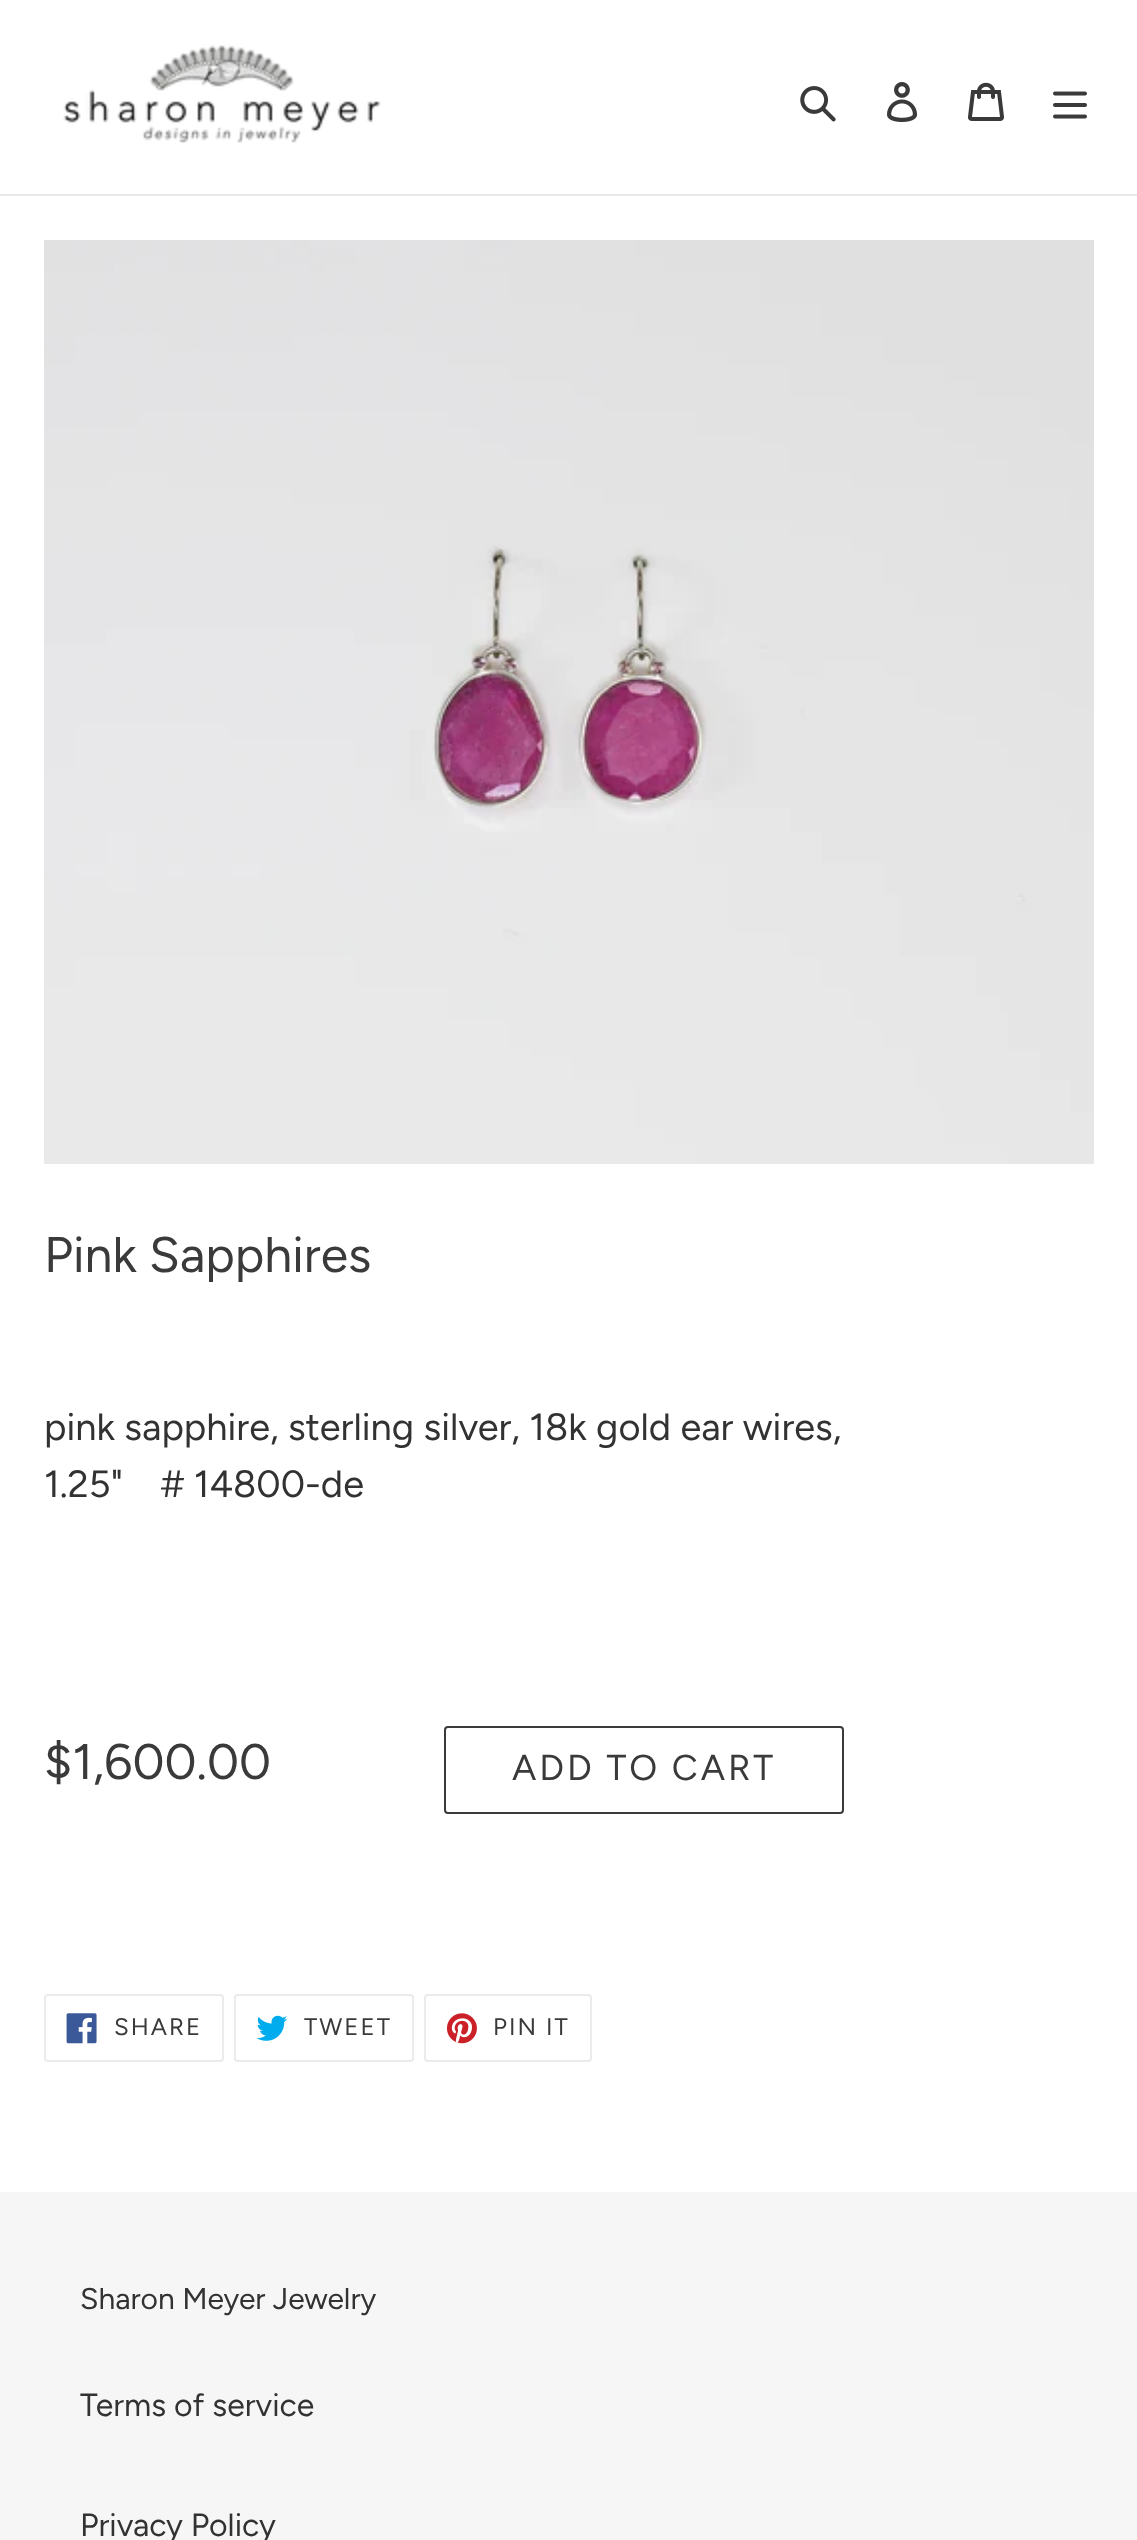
async function draw(canvas) {
	canvas.width = 1137;
	canvas.height = 2540;
	const c = canvas.getContext('2d');
	c.miterLimit = 4;
	c.fontKerning = 'normal';
	async function loadImage(src) {
		const img = new Image();
		img.src = src;
		await img.decode();
		return img;
	}

	c.fillStyle = '#fff';
	c.fillRect(0, 0, 1137, 2540);
	c.fillStyle = '#e8e9eb';
	c.fillRect(0, 194, 1137, 2);
	c.drawImage(await loadImage('img1.png'), 63, 45, 318, 98);
	c.drawImage(await loadImage('img2.png'), 800, 86, 36, 36);
	c.drawImage(await loadImage('img3.png'), 887, 82, 31, 40);
	c.drawImage(await loadImage('img4.png'), 968, 82, 36, 39);
	c.drawImage(await loadImage('img5.png'), 1053, 91, 34, 28);
	c.drawImage(await loadImage('img6.png'), 44, 240, 1050, 924);
	c.font = '50px Figtree';
	c.fillStyle = '#3a3a3a';
	c.fillText('Pink Sapphires', 44, 1272);
	c.font = '38px Figtree';
	c.fillStyle = '#333232';
	c.fillText('pink sapphire, sterling silver, 18k gold ear wires,', 44, 1440);
	c.fillText('1.25"    # 14800-de', 44, 1497);
	c.font = '50px Figtree';
	c.fillStyle = '#3a3a3a';
	c.fillText('$1,600.00', 44, 1779);
	c.beginPath();
	c.roundRect(445, 1727, 398, 86, 3);
	c.strokeStyle = '#3a3a3a';
	c.lineWidth = 2;
	c.stroke();
	c.letterSpacing = '2.9px';
	c.font = '36px Figtree';
	c.fillText('ADD TO CART', 512, 1780);
	c.beginPath();
	c.roundRect(45, 1995, 178, 66, 3);
	c.strokeStyle = '#ebebeb';
	c.stroke();
	c.drawImage(await loadImage('img7.png'), 66, 2013, 31, 31);
	c.letterSpacing = '2px';
	c.font = '24px Figtree';
	c.fillText('SHARE', 114, 2035);
	c.beginPath();
	c.roundRect(235, 1995, 178, 66, 3);
	c.stroke();
	c.drawImage(await loadImage('img8.png'), 256, 2015, 32, 26);
	c.fillText('TWEET', 304, 2035);
	c.beginPath();
	c.roundRect(425, 1995, 166, 66, 3);
	c.stroke();
	c.drawImage(await loadImage('img9.png'), 446, 2013, 31, 31);
	c.fillText('PIN IT', 493, 2035);
	c.fillStyle = '#f6f6f6';
	c.fillRect(0, 2192, 1137, 348);
	c.letterSpacing = '0px';
	c.font = '30px Figtree';
	c.fillStyle = '#333232';
	c.fillText('Sharon Meyer Jewelry', 80, 2309);
	c.font = '32px Figtree';
	c.fillText('Terms of service', 80, 2416);
	c.fillText('Privacy Policy', 80, 2536);
}

draw(document.querySelector('canvas'));
